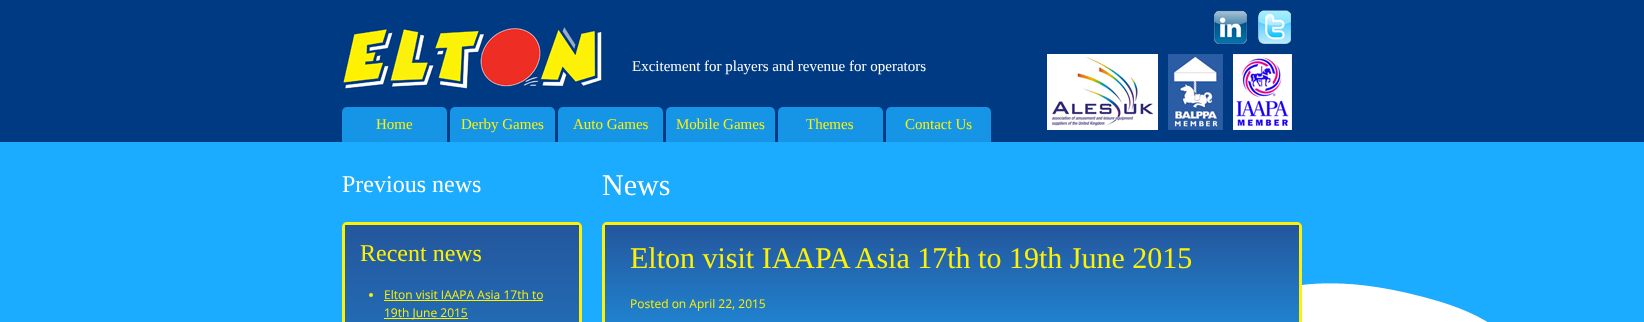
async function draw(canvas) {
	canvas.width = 1644;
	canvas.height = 322;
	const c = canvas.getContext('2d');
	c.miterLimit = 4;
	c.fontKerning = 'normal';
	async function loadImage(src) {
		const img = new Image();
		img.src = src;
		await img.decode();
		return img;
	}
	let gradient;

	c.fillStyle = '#fff';
	c.fillRect(0, 0, 1644, 322);
	c.drawImage(await loadImage('img1.png'), 0, 142, 1644, 180);
	c.fillStyle = '#003a82';
	c.fillRect(0, 0, 1644, 142);
	c.drawImage(await loadImage('img2.png'), 342, 27, 260, 63);
	c.font = '15px Liberation Serif';
	c.fillStyle = '#fff';
	c.fillText('Excitement for players and revenue for operators', 632, 71);
	c.drawImage(await loadImage('img3.png'), 1214, 10, 33, 34);
	c.drawImage(await loadImage('img4.png'), 1258, 10, 33, 34);
	c.drawImage(await loadImage('img5.png'), 1047, 54, 111, 76);
	c.drawImage(await loadImage('img6.png'), 1168, 54, 55, 76);
	c.drawImage(await loadImage('img7.png'), 1233, 54, 59, 76);
	c.fillStyle = '#1695e6';
	c.beginPath();
	c.roundRect(342, 107, 105, 35, [5, 5, 0, 0]);
	c.fill();
	c.fillStyle = '#fdf107';
	c.fillText('Home', 376, 129);
	c.fillStyle = '#1695e6';
	c.beginPath();
	c.roundRect(450, 107, 105, 35, [5, 5, 0, 0]);
	c.fill();
	c.fillStyle = '#fdf107';
	c.fillText('Derby Games', 461, 129);
	c.fillStyle = '#1695e6';
	c.beginPath();
	c.roundRect(558, 107, 105, 35, [5, 5, 0, 0]);
	c.fill();
	c.fillStyle = '#fdf107';
	c.fillText('Auto Games', 573, 129);
	c.fillStyle = '#1695e6';
	c.beginPath();
	c.roundRect(666, 107, 109, 35, [5, 5, 0, 0]);
	c.fill();
	c.fillStyle = '#fdf107';
	c.fillText('Mobile Games', 676, 129);
	c.fillStyle = '#1695e6';
	c.beginPath();
	c.roundRect(778, 107, 105, 35, [5, 5, 0, 0]);
	c.fill();
	c.fillStyle = '#fdf107';
	c.fillText('Themes', 806, 129);
	c.fillStyle = '#1695e6';
	c.beginPath();
	c.roundRect(886, 107, 105, 35, [5, 5, 0, 0]);
	c.fill();
	c.fillStyle = '#fdf107';
	c.fillText('Contact Us', 905, 129);
	c.font = '24px Liberation Serif';
	c.fillStyle = '#fff';
	c.fillText('Previous news', 342, 192);
	c.beginPath();
	c.roundRect(343.5, 223.5, 237, 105, 3.5);
	c.strokeStyle = '#fcf10b';
	c.lineWidth = 3;
	c.stroke();
	gradient = c.createLinearGradient(462, 225, 462, 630);
	gradient.addColorStop(0, '#24569c');
	gradient.addColorStop(1, '#1cabfe');
	c.fillStyle = gradient;
	c.fillRect(345, 225, 234, 97);
	c.fillStyle = '#fdf107';
	c.fillText('Recent news', 360, 261);
	c.beginPath();
	c.arc(371, 295, 2, 0, 2 * Math.PI);
	c.fill();
	c.font = '12px Open Sans';
	c.fillText('Elton visit IAAPA Asia 17th to', 384, 299);
	c.fillRect(384, 300, 159, 1);
	c.fillRect(384, 318, 84, 1);
	c.fillText('19th June 2015', 384, 317);
	c.font = '30px Liberation Serif';
	c.fillStyle = '#fff';
	c.fillText('News', 602, 195);
	c.beginPath();
	c.roundRect(603.5, 223.5, 697, 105, 3.5);
	c.stroke();
	gradient = c.createLinearGradient(952, 225, 952, 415);
	gradient.addColorStop(0, '#24569c');
	gradient.addColorStop(1, '#1cabfe');
	c.fillStyle = gradient;
	c.fillRect(605, 225, 694, 97);
	c.fillStyle = '#fdf107';
	c.fillText('Elton visit IAAPA Asia 17th to 19th June 2015', 630, 268);
	c.font = '12px Open Sans';
	c.fillText('Posted on April 22, 2015', 630, 308);
}

draw(document.querySelector('canvas'));
